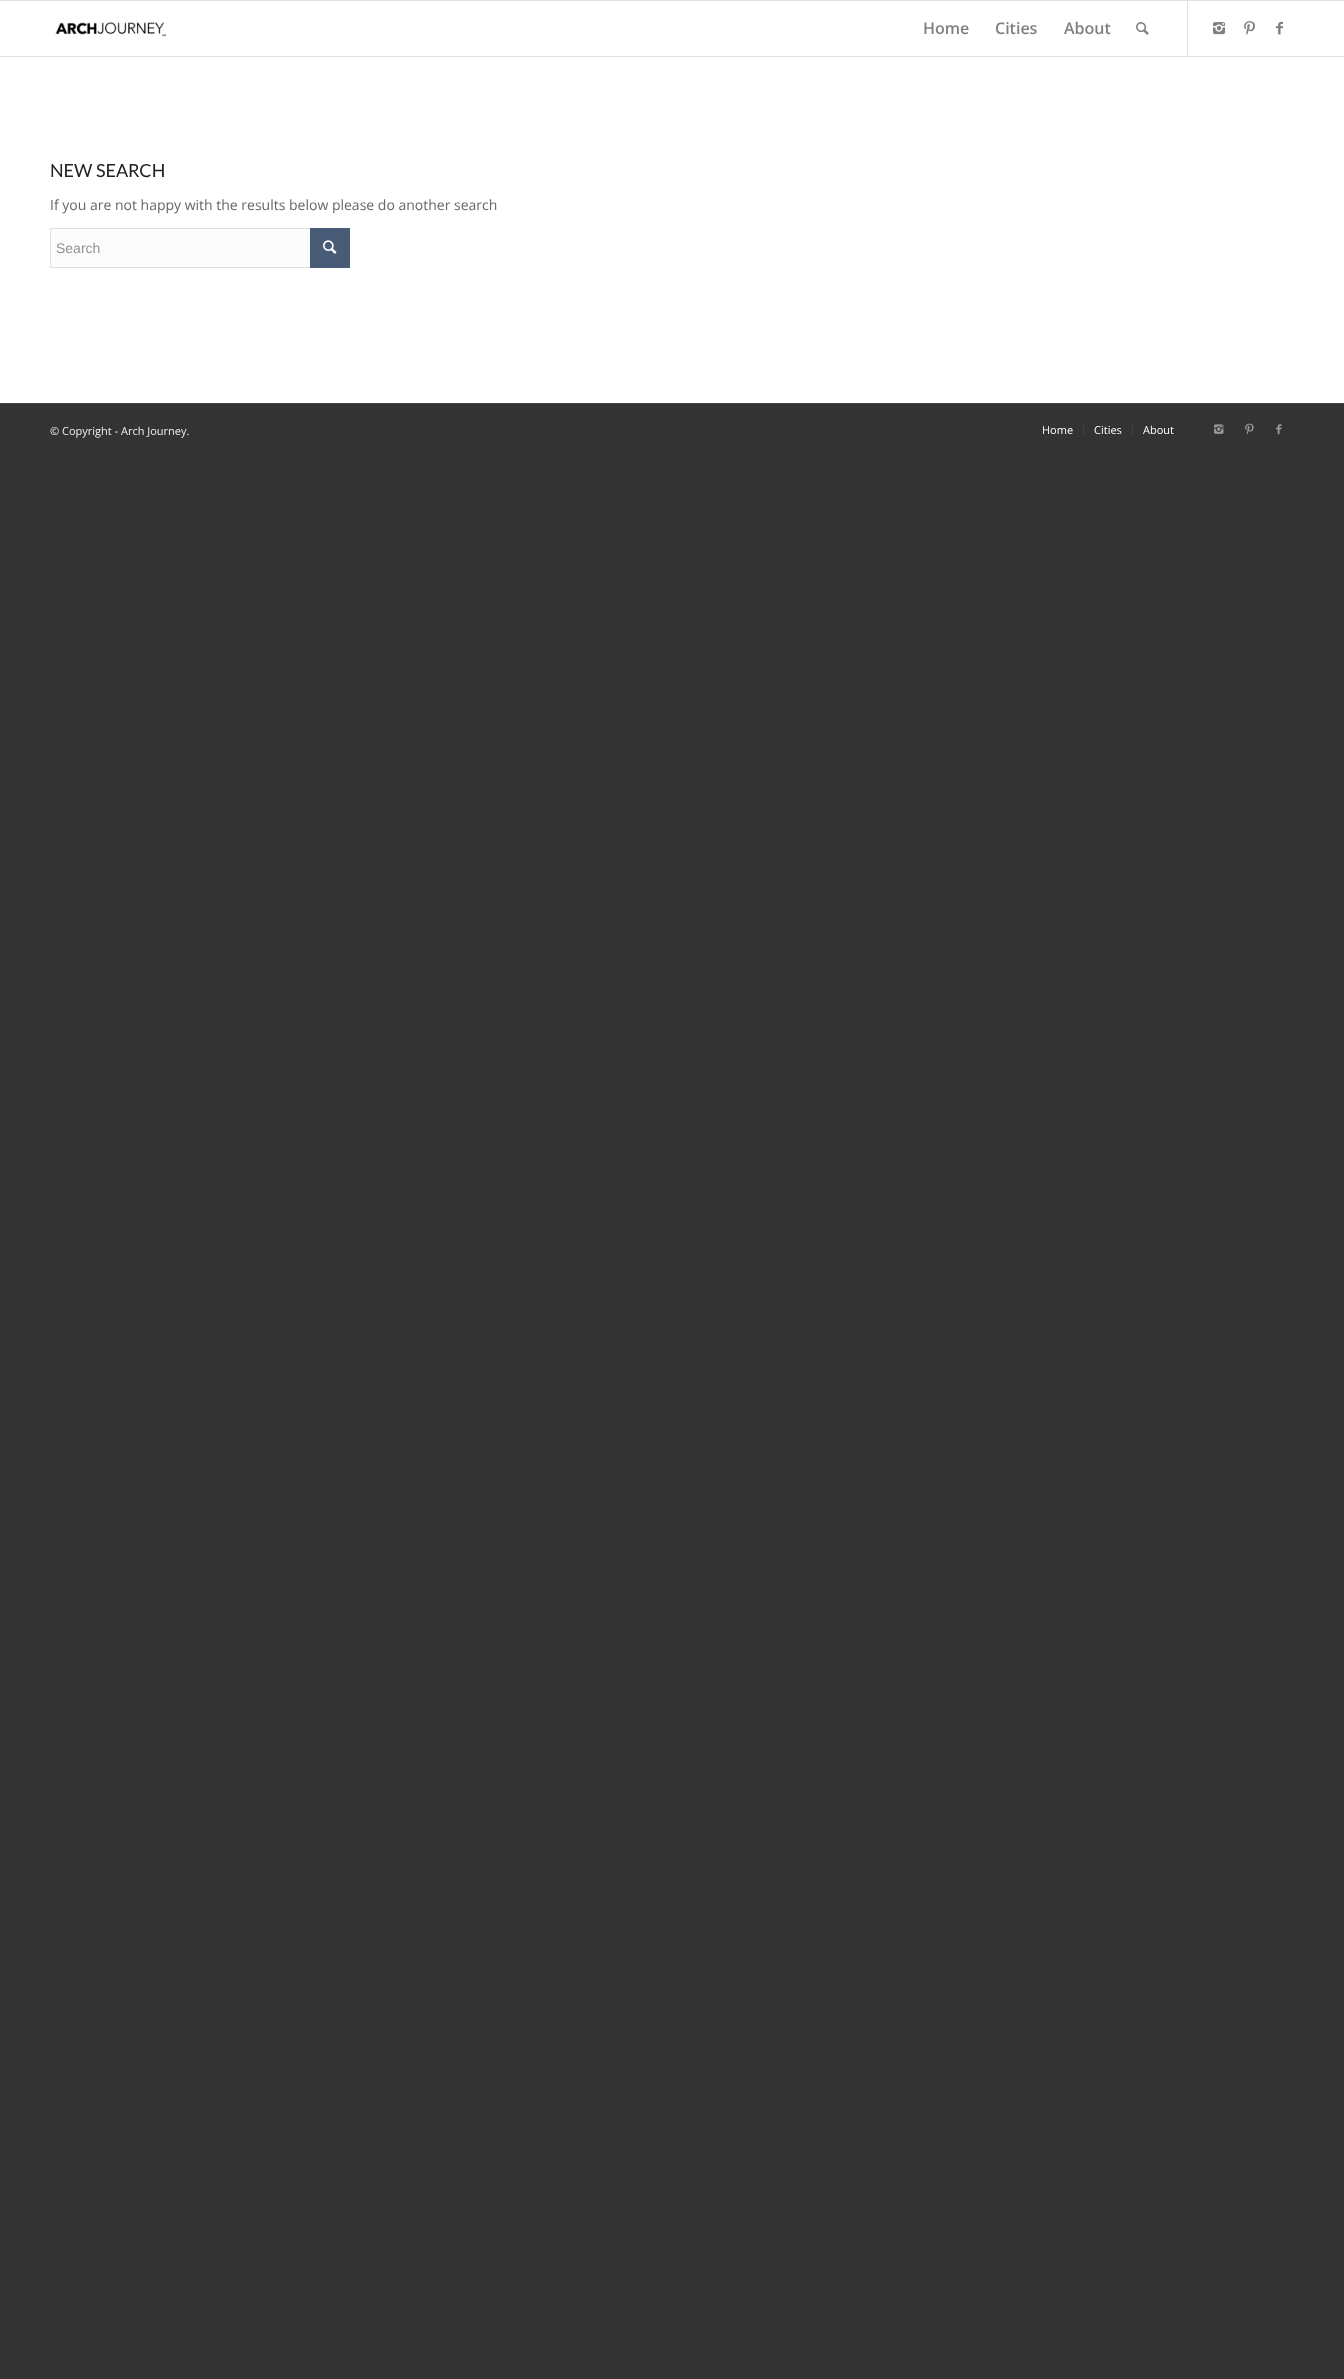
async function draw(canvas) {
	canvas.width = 1344;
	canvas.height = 2379;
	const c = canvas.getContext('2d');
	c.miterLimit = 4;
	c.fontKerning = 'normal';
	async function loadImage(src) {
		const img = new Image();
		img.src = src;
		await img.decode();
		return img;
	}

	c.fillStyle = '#333';
	c.fillRect(0, 0, 1344, 2379);
	for (const [x, y, w, h, color] of [
		[0, 0, 1344, 1, '#e1e1e1'],
		[0, 1, 1344, 402, '#fff'],
		[0, 56, 1344, 1, '#e1e1e1'],
	]) {
		c.fillStyle = color;
		c.fillRect(x, y, w, h);
	}
	c.drawImage(await loadImage('img1.png'), 55, 22, 112, 15);
	c.fillRect(1187, 1, 1, 55);
	c.font = '600 16px Open Sans';
	c.fillStyle = '#808080';
	for (const [text, x, y] of [
		['Home', 923, 34],
		['Cities', 995, 34],
		['About', 1064, 34],
	]) {
		c.fillText(text, x, y);
	}
	c.drawImage(await loadImage('img2.png'), 1136, 22, 13, 13);
	c.drawImage(await loadImage('img3.png'), 1213, 22, 13, 13);
	c.drawImage(await loadImage('img4.png'), 1244, 21, 11, 14);
	c.drawImage(await loadImage('img5.png'), 1276, 21, 7, 14);
	c.font = '18px Lato';
	c.fillStyle = '#222';
	c.fillText('NEW SEARCH', 50, 177);
	c.font = '14px Open Sans';
	c.fillStyle = '#666';
	c.fillText('If you are not happy with the results below please do another search', 50, 210);
	c.fillStyle = '#fcfcfc';
	c.fillRect(51, 229, 259, 38);
	c.strokeStyle = '#e1e1e1';
	c.strokeRect(50.5, 228.5, 299, 39);
	c.font = '14px Liberation Sans';
	c.fillStyle = '#919191';
	c.fillText('Search', 56, 253);
	c.fillStyle = '#485b77';
	c.fillRect(310, 228, 40, 40);
	c.drawImage(await loadImage('img6.png'), 323, 240, 14, 14);
	c.fillStyle = '#444';
	c.fillRect(0, 403, 1344, 1);
	c.font = '11px Open Sans';
	c.fillStyle = '#eee';
	c.fillText('© Copyright - Arch Journey.', 50, 435);
	c.fillStyle = '#fff';
	c.fillText('Home', 1042, 434);
	c.fillStyle = '#444';
	c.fillRect(1083, 425, 1, 10);
	c.fillStyle = '#fff';
	c.fillText('Cities', 1094, 434);
	c.fillStyle = '#444';
	c.fillRect(1132, 425, 1, 10);
	c.fillStyle = '#fff';
	c.fillText('About', 1143, 434);
	c.drawImage(await loadImage('img7.png'), 1214, 424, 10, 10);
	c.drawImage(await loadImage('img8.png'), 1245, 423, 9, 12);
	c.drawImage(await loadImage('img9.png'), 1276, 424, 6, 11);
}

draw(document.querySelector('canvas'));
